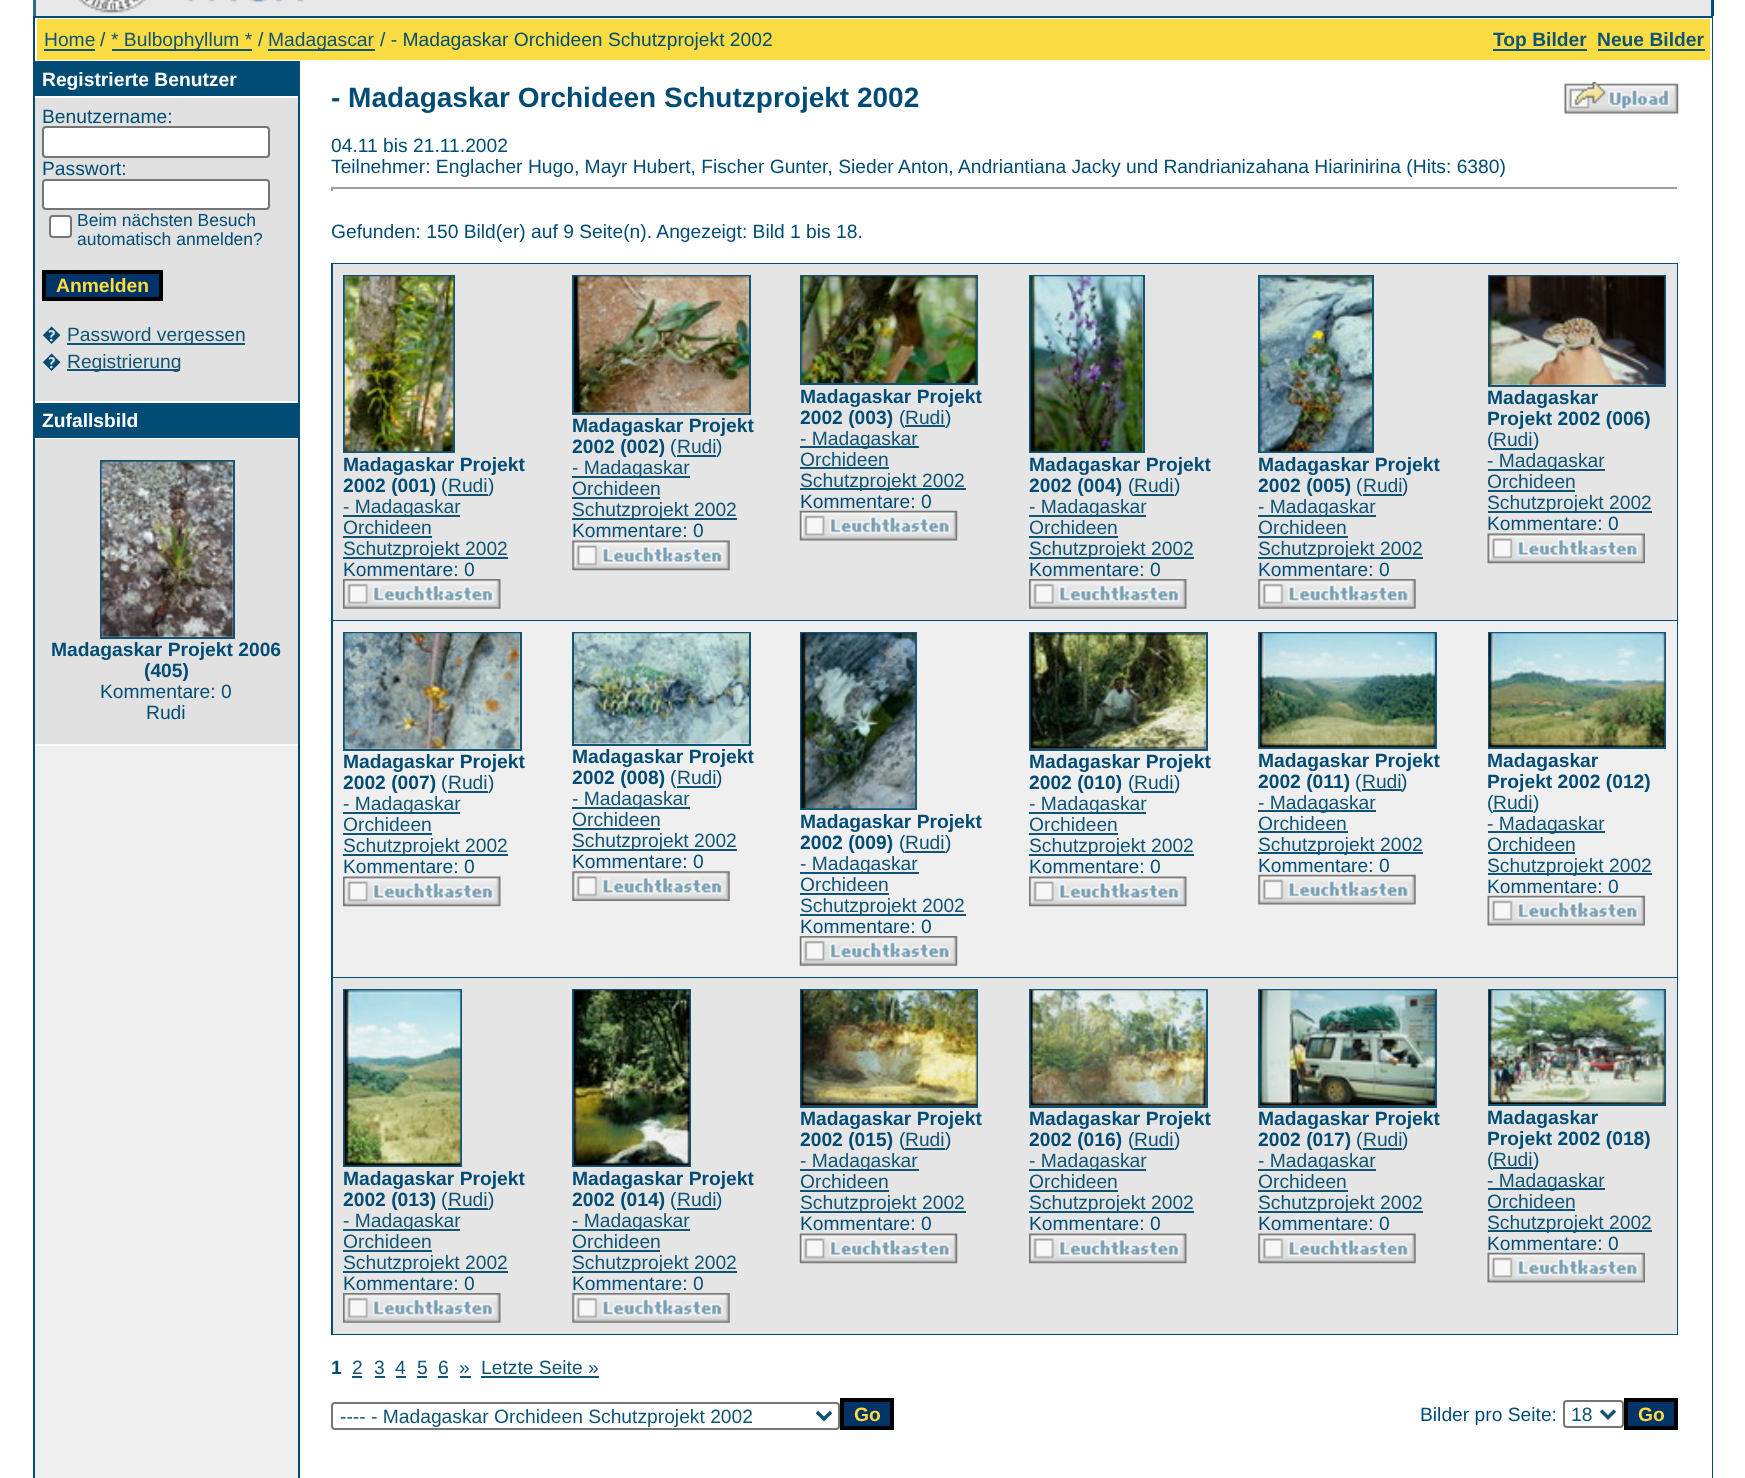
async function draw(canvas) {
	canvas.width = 1745;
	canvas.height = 1478;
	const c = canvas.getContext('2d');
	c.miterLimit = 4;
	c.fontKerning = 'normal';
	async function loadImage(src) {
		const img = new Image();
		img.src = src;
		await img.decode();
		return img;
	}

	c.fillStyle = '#fff';
	c.fillRect(0, 0, 1745, 1478);
	c.fillStyle = '#e8e8e8';
	c.fillRect(36, 0, 1675, 16);
	c.fillStyle = '#2b698a';
	c.fillRect(33, 0, 3, 16);
	c.drawImage(await loadImage('img1.png'), 78, 0, 226, 13);
	for (const [x, y, w, h, color] of [
		[1711, 0, 3, 16, '#004c75'],
		[33, 16, 1680, 1462, '#004c75'],
		[35, 18, 1677, 1460, '#fff'],
		[37, 19, 1673, 41, '#fcdc43'],
	]) {
		c.fillStyle = color;
		c.fillRect(x, y, w, h);
	}
	c.font = '19.25px Liberation Sans';
	c.fillStyle = '#0f5475';
	c.fillText('Home', 44, 46);
	c.fillRect(44, 49, 51, 2);
	c.fillStyle = '#004c75';
	c.fillText('/', 100, 46);
	c.fillStyle = '#0f5475';
	c.fillRect(112, 49, 140, 2);
	c.fillText('* Bulbophyllum *', 111, 46);
	c.fillStyle = '#004c75';
	c.fillText('/', 258, 46);
	c.fillStyle = '#0f5475';
	c.fillRect(268, 49, 107, 2);
	c.fillText('Madagascar', 268, 46);
	c.fillStyle = '#004c75';
	c.fillText('/ - Madagaskar Orchideen Schutzprojekt 2002', 380, 46);
	c.fillStyle = '#0f5475';
	c.fillRect(1493, 49, 94, 2);
	c.font = 'bold 19.25px Liberation Sans';
	c.fillText('Top Bilder', 1493, 46);
	c.fillText('Neue Bilder', 1597, 46);
	for (const [x, y, w, h, color] of [
		[1598, 49, 107, 2, '#0f5475'],
		[35, 746, 263, 732, '#efefef'],
		[35, 61, 263, 35, '#004c75'],
	]) {
		c.fillStyle = color;
		c.fillRect(x, y, w, h);
	}
	c.fillStyle = '#fff';
	c.fillText('Registrierte Benutzer', 42, 86);
	c.fillStyle = '#e1e1e1';
	c.fillRect(35, 98, 263, 303);
	c.font = '19.25px Liberation Sans';
	c.fillStyle = '#004c75';
	c.fillText('Benutzername:', 42, 123);
	c.fillStyle = '#fff';
	c.beginPath();
	c.roundRect(43, 127, 226, 30, 3);
	c.fill();
	c.strokeStyle = '#767676';
	c.lineWidth = 2;
	c.stroke();
	c.fillStyle = '#004c75';
	c.fillText('Passwort:', 42, 175);
	c.fillStyle = '#fff';
	c.beginPath();
	c.roundRect(43, 180, 226, 29, 3);
	c.fill();
	c.stroke();
	c.beginPath();
	c.roundRect(50, 216, 21, 21, 3);
	c.fill();
	c.stroke();
	c.font = '17.5px Liberation Sans';
	c.fillStyle = '#004c75';
	c.fillText('Beim nächsten Besuch', 77, 226);
	c.fillText('automatisch anmelden?', 77, 245);
	c.fillStyle = '#036';
	c.beginPath();
	c.rect(44, 272, 117, 27);
	c.fill();
	c.strokeStyle = '#000';
	c.lineWidth = 4;
	c.stroke();
	c.font = 'bold 19.25px Liberation Sans';
	c.fillStyle = '#fcdc43';
	c.fillText('Anmelden', 56, 292);
	c.font = '19.25px Noto Sans';
	c.fillStyle = '#004c75';
	c.fillText('�', 42, 341);
	c.fillStyle = '#0f5475';
	c.fillRect(67, 343, 178, 2);
	c.font = '19.25px Liberation Sans';
	c.fillText('Password vergessen', 67, 341);
	c.font = '19.25px Noto Sans';
	c.fillStyle = '#004c75';
	c.fillText('�', 42, 368);
	c.fillStyle = '#0f5475';
	c.fillRect(67, 369, 113, 2);
	c.font = '19.25px Liberation Sans';
	c.fillText('Registrierung', 67, 368);
	c.fillStyle = '#004c75';
	c.fillRect(35, 403, 263, 35);
	c.font = 'bold 19.25px Liberation Sans';
	c.fillStyle = '#fff';
	c.fillText('Zufallsbild', 42, 427);
	c.fillStyle = '#e1e1e1';
	c.fillRect(35, 439, 263, 305);
	c.strokeStyle = '#0f5475';
	c.lineWidth = 2;
	c.strokeRect(101, 461, 133, 177);
	c.drawImage(await loadImage('img2.png'), 101, 461, 132, 176);
	c.fillStyle = '#004c75';
	c.fillText('Madagaskar Projekt 2006', 51, 656);
	c.fillText('(405)', 144, 677);
	c.font = '19.25px Liberation Sans';
	c.fillText('Kommentare: 0', 100, 698);
	c.fillText('Rudi', 146, 719);
	c.fillRect(298, 61, 2, 1417);
	c.font = 'bold 28px Liberation Sans';
	c.fillText('- Madagaskar Orchideen Schutzprojekt 2002', 331, 107);
	c.drawImage(await loadImage('img3.png'), 1564, 82, 115, 32);
	c.font = '19.25px Liberation Sans';
	c.fillText('04.11 bis 21.11.2002', 331, 152);
	c.fillText('Teilnehmer: Englacher Hugo, Mayr Hubert, Fischer Gunter, Sieder Anton, Andriantiana Jacky und Randrianizahana Hiarinirina (Hits: 6380)', 331, 173);
	for (const [x, y, w, h, color] of [
		[331, 187, 1347, 2, '#9f9f9f'],
		[1677, 187, 2, 4, '#eee'],
		[331, 187, 2, 4, '#9f9f9f'],
	]) {
		c.fillStyle = color;
		c.fillRect(x, y, w, h);
	}
	c.fillStyle = '#004c75';
	c.fillText('Gefunden: 150 Bild(er) auf 9 Seite(n). Angezeigt: Bild 1 bis 18.', 331, 238);
	c.fillRect(331, 263, 1347, 1072);
	c.fillStyle = '#e5e5e5';
	c.fillRect(333, 264, 1344, 356);
	c.strokeRect(344, 276, 110, 176);
	c.drawImage(await loadImage('img4.png'), 344, 276, 110, 176);
	c.font = 'bold 19.25px Liberation Sans';
	c.fillStyle = '#004c75';
	c.fillText('Madagaskar Projekt', 343, 471);
	c.fillText('2002 (001)', 343, 492);
	c.font = '19.25px Liberation Sans';
	c.fillText('(', 441, 492);
	c.fillStyle = '#0f5475';
	c.fillText('Rudi', 448, 492);
	c.fillRect(448, 494, 40, 2);
	c.fillStyle = '#004c75';
	c.fillText(')', 488, 492);
	c.fillStyle = '#0f5475';
	c.fillRect(343, 515, 117, 2);
	c.fillText('- Madagaskar', 343, 513);
	c.fillText('Orchideen', 343, 534);
	c.fillRect(343, 536, 89, 2);
	c.fillRect(343, 557, 165, 2);
	c.fillText('Schutzprojekt 2002', 343, 555);
	c.fillStyle = '#004c75';
	c.fillText('Kommentare: 0', 343, 576);
	c.drawImage(await loadImage('img5.png'), 343, 579, 158, 30);
	c.strokeRect(573, 276, 177, 138);
	c.drawImage(await loadImage('img6.png'), 574, 276, 175, 137);
	c.font = 'bold 19.25px Liberation Sans';
	c.fillText('Madagaskar Projekt', 572, 432);
	c.fillText('2002 (002)', 572, 453);
	c.font = '19.25px Liberation Sans';
	c.fillText('(', 670, 453);
	c.fillStyle = '#0f5475';
	c.fillText('Rudi', 677, 453);
	c.fillRect(677, 455, 39, 2);
	c.fillStyle = '#004c75';
	c.fillText(')', 716, 453);
	c.fillStyle = '#0f5475';
	c.fillRect(572, 476, 118, 2);
	c.fillText('- Madagaskar', 572, 474);
	c.fillText('Orchideen', 572, 495);
	c.fillRect(572, 497, 88, 2);
	c.fillRect(572, 518, 165, 2);
	c.fillText('Schutzprojekt 2002', 572, 516);
	c.fillStyle = '#004c75';
	c.fillText('Kommentare: 0', 572, 537);
	c.drawImage(await loadImage('img7.png'), 572, 540, 158, 31);
	c.strokeRect(801, 276, 176, 108);
	c.drawImage(await loadImage('img8.png'), 801, 276, 176, 107);
	c.font = 'bold 19.25px Liberation Sans';
	c.fillText('Madagaskar Projekt', 800, 403);
	c.fillText('2002 (003)', 800, 424);
	c.font = '19.25px Liberation Sans';
	c.fillText('(', 899, 424);
	c.fillStyle = '#0f5475';
	c.fillText('Rudi', 905, 424);
	c.fillRect(905, 425, 40, 2);
	c.fillStyle = '#004c75';
	c.fillText(')', 945, 424);
	c.fillStyle = '#0f5475';
	c.fillRect(800, 446, 119, 2);
	c.fillText('- Madagaskar', 800, 445);
	c.fillText('Orchideen', 800, 466);
	c.fillRect(800, 467, 89, 2);
	c.fillRect(800, 488, 166, 2);
	c.fillText('Schutzprojekt 2002', 800, 487);
	c.fillStyle = '#004c75';
	c.fillText('Kommentare: 0', 800, 508);
	c.drawImage(await loadImage('img9.png'), 799, 510, 159, 31);
	c.strokeRect(1030, 276, 114, 176);
	c.drawImage(await loadImage('img10.png'), 1030, 276, 113, 176);
	c.font = 'bold 19.25px Liberation Sans';
	c.fillText('Madagaskar Projekt', 1029, 471);
	c.fillText('2002 (004)', 1029, 492);
	c.font = '19.25px Liberation Sans';
	c.fillText('(', 1128, 492);
	c.fillStyle = '#0f5475';
	c.fillText('Rudi', 1134, 492);
	c.fillRect(1134, 494, 40, 2);
	c.fillStyle = '#004c75';
	c.fillText(')', 1174, 492);
	c.fillStyle = '#0f5475';
	c.fillRect(1029, 515, 117, 2);
	c.fillText('- Madagaskar', 1029, 513);
	c.fillText('Orchideen', 1029, 534);
	c.fillRect(1029, 536, 89, 2);
	c.fillRect(1029, 557, 165, 2);
	c.fillText('Schutzprojekt 2002', 1029, 555);
	c.fillStyle = '#004c75';
	c.fillText('Kommentare: 0', 1029, 576);
	c.drawImage(await loadImage('img11.png'), 1029, 579, 158, 30);
	c.strokeRect(1259, 276, 114, 176);
	c.drawImage(await loadImage('img12.png'), 1260, 276, 112, 176);
	c.font = 'bold 19.25px Liberation Sans';
	c.fillText('Madagaskar Projekt', 1258, 471);
	c.fillText('2002 (005)', 1258, 492);
	c.font = '19.25px Liberation Sans';
	c.fillText('(', 1356, 492);
	c.fillStyle = '#0f5475';
	c.fillText('Rudi', 1363, 492);
	c.fillRect(1363, 494, 39, 2);
	c.fillStyle = '#004c75';
	c.fillText(')', 1402, 492);
	c.fillStyle = '#0f5475';
	c.fillRect(1258, 515, 118, 2);
	c.fillText('- Madagaskar', 1258, 513);
	c.fillText('Orchideen', 1258, 534);
	c.fillRect(1258, 536, 90, 2);
	c.fillRect(1258, 557, 165, 2);
	c.fillText('Schutzprojekt 2002', 1258, 555);
	c.fillStyle = '#004c75';
	c.fillText('Kommentare: 0', 1258, 576);
	c.drawImage(await loadImage('img13.png'), 1258, 579, 158, 30);
	c.strokeRect(1489, 276, 176, 110);
	c.drawImage(await loadImage('img14.png'), 1489, 276, 176, 109);
	c.font = 'bold 19.25px Liberation Sans';
	c.fillText('Madagaskar', 1487, 404);
	c.fillText('Projekt 2002 (006)', 1487, 425);
	c.font = '19.25px Liberation Sans';
	c.fillText('(', 1487, 446);
	c.fillStyle = '#0f5475';
	c.fillText('Rudi', 1493, 446);
	c.fillRect(1493, 448, 40, 2);
	c.fillStyle = '#004c75';
	c.fillText(')', 1533, 446);
	c.fillStyle = '#0f5475';
	c.fillRect(1488, 469, 117, 2);
	c.fillText('- Madagaskar', 1487, 467);
	c.fillText('Orchideen', 1487, 488);
	c.fillRect(1488, 490, 87, 2);
	c.fillRect(1488, 511, 164, 2);
	c.fillText('Schutzprojekt 2002', 1487, 509);
	c.fillStyle = '#004c75';
	c.fillText('Kommentare: 0', 1487, 530);
	c.drawImage(await loadImage('img15.png'), 1487, 533, 158, 31);
	c.fillStyle = '#efefef';
	c.fillRect(333, 621, 1344, 356);
	c.strokeRect(344, 633, 177, 117);
	c.drawImage(await loadImage('img16.png'), 344, 633, 176, 116);
	c.font = 'bold 19.25px Liberation Sans';
	c.fillStyle = '#004c75';
	c.fillText('Madagaskar Projekt', 343, 768);
	c.fillText('2002 (007)', 343, 789);
	c.font = '19.25px Liberation Sans';
	c.fillText('(', 441, 789);
	c.fillStyle = '#0f5475';
	c.fillText('Rudi', 448, 789);
	c.fillRect(448, 791, 40, 2);
	c.fillStyle = '#004c75';
	c.fillText(')', 488, 789);
	c.fillStyle = '#0f5475';
	c.fillRect(343, 812, 117, 2);
	c.fillText('- Madagaskar', 343, 810);
	c.fillText('Orchideen', 343, 831);
	c.fillRect(343, 833, 89, 2);
	c.fillRect(343, 854, 165, 2);
	c.fillText('Schutzprojekt 2002', 343, 852);
	c.fillStyle = '#004c75';
	c.fillText('Kommentare: 0', 343, 873);
	c.drawImage(await loadImage('img17.png'), 343, 876, 158, 31);
	c.strokeRect(573, 633, 177, 112);
	c.drawImage(await loadImage('img18.png'), 574, 633, 175, 111);
	c.font = 'bold 19.25px Liberation Sans';
	c.fillText('Madagaskar Projekt', 572, 763);
	c.fillText('2002 (008)', 572, 784);
	c.font = '19.25px Liberation Sans';
	c.fillText('(', 670, 784);
	c.fillStyle = '#0f5475';
	c.fillText('Rudi', 677, 784);
	c.fillRect(677, 786, 39, 2);
	c.fillStyle = '#004c75';
	c.fillText(')', 716, 784);
	c.fillStyle = '#0f5475';
	c.fillRect(572, 807, 118, 2);
	c.fillText('- Madagaskar', 572, 805);
	c.fillText('Orchideen', 572, 826);
	c.fillRect(572, 828, 88, 2);
	c.fillRect(572, 849, 165, 2);
	c.fillText('Schutzprojekt 2002', 572, 847);
	c.fillStyle = '#004c75';
	c.fillText('Kommentare: 0', 572, 868);
	c.drawImage(await loadImage('img19.png'), 572, 871, 158, 30);
	c.strokeRect(801, 633, 115, 176);
	c.drawImage(await loadImage('img20.png'), 801, 633, 115, 176);
	c.font = 'bold 19.25px Liberation Sans';
	c.fillText('Madagaskar Projekt', 800, 828);
	c.fillText('2002 (009)', 800, 849);
	c.font = '19.25px Liberation Sans';
	c.fillText('(', 899, 849);
	c.fillStyle = '#0f5475';
	c.fillText('Rudi', 905, 849);
	c.fillRect(905, 851, 40, 2);
	c.fillStyle = '#004c75';
	c.fillText(')', 945, 849);
	c.fillStyle = '#0f5475';
	c.fillRect(800, 872, 119, 2);
	c.fillText('- Madagaskar', 800, 870);
	c.fillText('Orchideen', 800, 891);
	c.fillRect(800, 893, 89, 2);
	c.fillRect(800, 914, 166, 2);
	c.fillText('Schutzprojekt 2002', 800, 912);
	c.fillStyle = '#004c75';
	c.fillText('Kommentare: 0', 800, 933);
	c.drawImage(await loadImage('img21.png'), 799, 936, 159, 30);
	c.strokeRect(1030, 633, 177, 117);
	c.drawImage(await loadImage('img22.png'), 1030, 633, 176, 116);
	c.font = 'bold 19.25px Liberation Sans';
	c.fillText('Madagaskar Projekt', 1029, 768);
	c.fillText('2002 (010)', 1029, 789);
	c.font = '19.25px Liberation Sans';
	c.fillText('(', 1128, 789);
	c.fillStyle = '#0f5475';
	c.fillText('Rudi', 1134, 789);
	c.fillRect(1134, 791, 40, 2);
	c.fillStyle = '#004c75';
	c.fillText(')', 1174, 789);
	c.fillStyle = '#0f5475';
	c.fillRect(1029, 812, 117, 2);
	c.fillText('- Madagaskar', 1029, 810);
	c.fillText('Orchideen', 1029, 831);
	c.fillRect(1029, 833, 89, 2);
	c.fillRect(1029, 854, 165, 2);
	c.fillText('Schutzprojekt 2002', 1029, 852);
	c.fillStyle = '#004c75';
	c.fillText('Kommentare: 0', 1029, 873);
	c.drawImage(await loadImage('img23.png'), 1029, 876, 158, 31);
	c.strokeRect(1259, 633, 177, 115);
	c.drawImage(await loadImage('img24.png'), 1260, 633, 175, 114);
	c.font = 'bold 19.25px Liberation Sans';
	c.fillText('Madagaskar Projekt', 1258, 767);
	c.fillText('2002 (011)', 1258, 788);
	c.font = '19.25px Liberation Sans';
	c.fillText('(', 1355, 788);
	c.fillStyle = '#0f5475';
	c.fillText('Rudi', 1362, 788);
	c.fillRect(1362, 789, 40, 2);
	c.fillStyle = '#004c75';
	c.fillText(')', 1401, 788);
	c.fillStyle = '#0f5475';
	c.fillRect(1258, 810, 118, 2);
	c.fillText('- Madagaskar', 1258, 809);
	c.fillText('Orchideen', 1258, 830);
	c.fillRect(1258, 831, 90, 2);
	c.fillRect(1258, 852, 165, 2);
	c.fillText('Schutzprojekt 2002', 1258, 851);
	c.fillStyle = '#004c75';
	c.fillText('Kommentare: 0', 1258, 872);
	c.drawImage(await loadImage('img25.png'), 1258, 874, 158, 31);
	c.strokeRect(1489, 633, 176, 115);
	c.drawImage(await loadImage('img26.png'), 1489, 633, 176, 114);
	c.font = 'bold 19.25px Liberation Sans';
	c.fillText('Madagaskar', 1487, 767);
	c.fillText('Projekt 2002 (012)', 1487, 788);
	c.font = '19.25px Liberation Sans';
	c.fillText('(', 1487, 809);
	c.fillStyle = '#0f5475';
	c.fillText('Rudi', 1493, 809);
	c.fillRect(1493, 810, 40, 2);
	c.fillStyle = '#004c75';
	c.fillText(')', 1533, 809);
	c.fillStyle = '#0f5475';
	c.fillRect(1488, 831, 117, 2);
	c.fillText('- Madagaskar', 1487, 830);
	c.fillText('Orchideen', 1487, 851);
	c.fillRect(1488, 852, 87, 2);
	c.fillRect(1488, 873, 164, 2);
	c.fillText('Schutzprojekt 2002', 1487, 872);
	c.fillStyle = '#004c75';
	c.fillText('Kommentare: 0', 1487, 893);
	c.drawImage(await loadImage('img27.png'), 1487, 895, 158, 31);
	c.fillStyle = '#e5e5e5';
	c.fillRect(333, 978, 1344, 356);
	c.strokeRect(344, 990, 117, 176);
	c.drawImage(await loadImage('img28.png'), 344, 990, 117, 176);
	c.font = 'bold 19.25px Liberation Sans';
	c.fillStyle = '#004c75';
	c.fillText('Madagaskar Projekt', 343, 1185);
	c.fillText('2002 (013)', 343, 1206);
	c.font = '19.25px Liberation Sans';
	c.fillText('(', 441, 1206);
	c.fillStyle = '#0f5475';
	c.fillText('Rudi', 448, 1206);
	c.fillRect(448, 1208, 40, 2);
	c.fillStyle = '#004c75';
	c.fillText(')', 488, 1206);
	c.fillStyle = '#0f5475';
	c.fillRect(343, 1229, 117, 2);
	c.fillText('- Madagaskar', 343, 1227);
	c.fillText('Orchideen', 343, 1248);
	c.fillRect(343, 1250, 89, 2);
	c.fillRect(343, 1271, 165, 2);
	c.fillText('Schutzprojekt 2002', 343, 1269);
	c.fillStyle = '#004c75';
	c.fillText('Kommentare: 0', 343, 1290);
	c.drawImage(await loadImage('img5.png'), 343, 1293, 158, 30);
	c.strokeRect(573, 990, 117, 176);
	c.drawImage(await loadImage('img29.png'), 574, 990, 116, 176);
	c.font = 'bold 19.25px Liberation Sans';
	c.fillText('Madagaskar Projekt', 572, 1185);
	c.fillText('2002 (014)', 572, 1206);
	c.font = '19.25px Liberation Sans';
	c.fillText('(', 670, 1206);
	c.fillStyle = '#0f5475';
	c.fillText('Rudi', 677, 1206);
	c.fillRect(677, 1208, 39, 2);
	c.fillStyle = '#004c75';
	c.fillText(')', 716, 1206);
	c.fillStyle = '#0f5475';
	c.fillRect(572, 1229, 118, 2);
	c.fillText('- Madagaskar', 572, 1227);
	c.fillText('Orchideen', 572, 1248);
	c.fillRect(572, 1250, 88, 2);
	c.fillRect(572, 1271, 165, 2);
	c.fillText('Schutzprojekt 2002', 572, 1269);
	c.fillStyle = '#004c75';
	c.fillText('Kommentare: 0', 572, 1290);
	c.drawImage(await loadImage('img13.png'), 572, 1293, 158, 30);
	c.strokeRect(801, 990, 176, 117);
	c.drawImage(await loadImage('img30.png'), 801, 990, 176, 116);
	c.font = 'bold 19.25px Liberation Sans';
	c.fillText('Madagaskar Projekt', 800, 1125);
	c.fillText('2002 (015)', 800, 1146);
	c.font = '19.25px Liberation Sans';
	c.fillText('(', 899, 1146);
	c.fillStyle = '#0f5475';
	c.fillText('Rudi', 905, 1146);
	c.fillRect(905, 1148, 40, 2);
	c.fillStyle = '#004c75';
	c.fillText(')', 945, 1146);
	c.fillStyle = '#0f5475';
	c.fillRect(800, 1169, 119, 2);
	c.fillText('- Madagaskar', 800, 1167);
	c.fillText('Orchideen', 800, 1188);
	c.fillRect(800, 1190, 89, 2);
	c.fillRect(800, 1211, 166, 2);
	c.fillText('Schutzprojekt 2002', 800, 1209);
	c.fillStyle = '#004c75';
	c.fillText('Kommentare: 0', 800, 1230);
	c.drawImage(await loadImage('img31.png'), 799, 1233, 159, 31);
	c.strokeRect(1030, 990, 177, 117);
	c.drawImage(await loadImage('img32.png'), 1030, 990, 176, 116);
	c.font = 'bold 19.25px Liberation Sans';
	c.fillText('Madagaskar Projekt', 1029, 1125);
	c.fillText('2002 (016)', 1029, 1146);
	c.font = '19.25px Liberation Sans';
	c.fillText('(', 1128, 1146);
	c.fillStyle = '#0f5475';
	c.fillText('Rudi', 1134, 1146);
	c.fillRect(1134, 1148, 40, 2);
	c.fillStyle = '#004c75';
	c.fillText(')', 1174, 1146);
	c.fillStyle = '#0f5475';
	c.fillRect(1029, 1169, 117, 2);
	c.fillText('- Madagaskar', 1029, 1167);
	c.fillText('Orchideen', 1029, 1188);
	c.fillRect(1029, 1190, 89, 2);
	c.fillRect(1029, 1211, 165, 2);
	c.fillText('Schutzprojekt 2002', 1029, 1209);
	c.fillStyle = '#004c75';
	c.fillText('Kommentare: 0', 1029, 1230);
	c.drawImage(await loadImage('img33.png'), 1029, 1233, 158, 31);
	c.strokeRect(1259, 990, 177, 117);
	c.drawImage(await loadImage('img34.png'), 1260, 990, 175, 116);
	c.font = 'bold 19.25px Liberation Sans';
	c.fillText('Madagaskar Projekt', 1258, 1125);
	c.fillText('2002 (017)', 1258, 1146);
	c.font = '19.25px Liberation Sans';
	c.fillText('(', 1356, 1146);
	c.fillStyle = '#0f5475';
	c.fillText('Rudi', 1363, 1146);
	c.fillRect(1363, 1148, 39, 2);
	c.fillStyle = '#004c75';
	c.fillText(')', 1402, 1146);
	c.fillStyle = '#0f5475';
	c.fillRect(1258, 1169, 118, 2);
	c.fillText('- Madagaskar', 1258, 1167);
	c.fillText('Orchideen', 1258, 1188);
	c.fillRect(1258, 1190, 90, 2);
	c.fillRect(1258, 1211, 165, 2);
	c.fillText('Schutzprojekt 2002', 1258, 1209);
	c.fillStyle = '#004c75';
	c.fillText('Kommentare: 0', 1258, 1230);
	c.drawImage(await loadImage('img7.png'), 1258, 1233, 158, 31);
	c.strokeRect(1489, 990, 176, 115);
	c.drawImage(await loadImage('img35.png'), 1489, 990, 176, 114);
	c.font = 'bold 19.25px Liberation Sans';
	c.fillText('Madagaskar', 1487, 1124);
	c.fillText('Projekt 2002 (018)', 1487, 1145);
	c.font = '19.25px Liberation Sans';
	c.fillText('(', 1487, 1166);
	c.fillStyle = '#0f5475';
	c.fillText('Rudi', 1493, 1166);
	c.fillRect(1493, 1167, 40, 2);
	c.fillStyle = '#004c75';
	c.fillText(')', 1533, 1166);
	c.fillStyle = '#0f5475';
	c.fillRect(1488, 1188, 117, 2);
	c.fillText('- Madagaskar', 1487, 1187);
	c.fillText('Orchideen', 1487, 1208);
	c.fillRect(1488, 1209, 87, 2);
	c.fillRect(1488, 1230, 164, 2);
	c.fillText('Schutzprojekt 2002', 1487, 1229);
	c.fillStyle = '#004c75';
	c.fillText('Kommentare: 0', 1487, 1250);
	c.drawImage(await loadImage('img36.png'), 1487, 1252, 158, 31);
	c.font = 'bold 19.25px Liberation Sans';
	c.fillText('1', 331, 1374);
	c.font = '19.25px Liberation Sans';
	c.fillStyle = '#0f5475';
	c.fillText('2', 352, 1374);
	c.fillRect(352, 1376, 10, 2);
	c.fillText('3', 374, 1374);
	c.fillRect(375, 1376, 10, 2);
	c.fillText('4', 395, 1374);
	c.fillRect(396, 1376, 10, 2);
	c.fillText('5', 417, 1374);
	c.fillRect(417, 1376, 10, 2);
	c.fillText('6', 438, 1374);
	c.fillRect(438, 1376, 10, 2);
	c.fillText('»', 459, 1374);
	c.fillRect(460, 1376, 11, 2);
	c.fillText('Letzte Seite »', 481, 1374);
	c.fillRect(481, 1376, 118, 2);
	c.beginPath();
	c.roundRect(332, 1403, 507, 26, 3);
	c.strokeStyle = '#767676';
	c.stroke();
	c.beginPath();
	c.moveTo(817, 1412);
	c.lineTo(824, 1419);
	c.lineTo(831, 1412);
	c.strokeStyle = '#0f5475';
	c.lineWidth = 3.5;
	c.stroke();
	c.fillText('---- - Madagaskar Orchideen Schutzprojekt 2002', 340, 1423);
	c.fillStyle = '#036';
	c.beginPath();
	c.rect(842, 1400, 50, 28);
	c.fill();
	c.strokeStyle = '#000';
	c.lineWidth = 4;
	c.stroke();
	c.font = 'bold 19.25px Liberation Sans';
	c.fillStyle = '#fcdc43';
	c.fillText('Go', 854, 1421);
	c.font = '19.25px Liberation Sans';
	c.fillStyle = '#004c75';
	c.fillText('Bilder pro Seite:', 1420, 1421);
	c.beginPath();
	c.roundRect(1564, 1401, 59, 26, 3);
	c.strokeStyle = '#767676';
	c.lineWidth = 2;
	c.stroke();
	c.beginPath();
	c.moveTo(1601, 1410.5);
	c.lineTo(1608, 1417.5);
	c.lineTo(1615, 1410.5);
	c.strokeStyle = '#0f5475';
	c.lineWidth = 3.5;
	c.stroke();
	c.fillStyle = '#0f5475';
	c.fillText('18', 1571, 1421);
	c.fillStyle = '#036';
	c.beginPath();
	c.rect(1626, 1400, 50, 28);
	c.fill();
	c.strokeStyle = '#000';
	c.lineWidth = 4;
	c.stroke();
	c.font = 'bold 19.25px Liberation Sans';
	c.fillStyle = '#fcdc43';
	c.fillText('Go', 1638, 1421);
}

draw(document.querySelector('canvas'));
